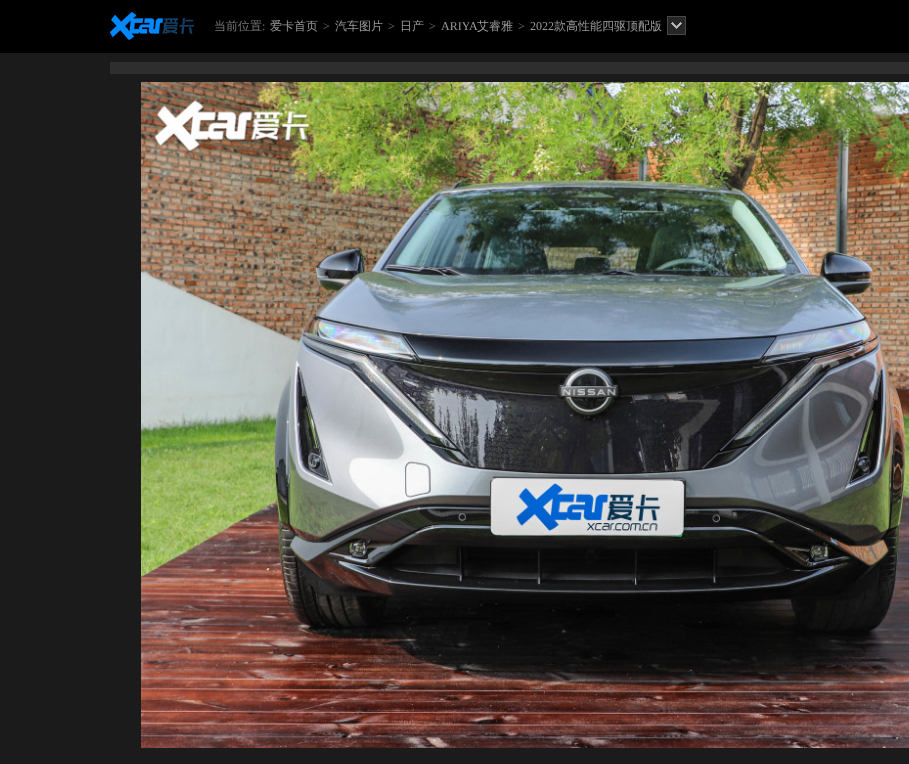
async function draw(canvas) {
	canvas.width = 909;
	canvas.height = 764;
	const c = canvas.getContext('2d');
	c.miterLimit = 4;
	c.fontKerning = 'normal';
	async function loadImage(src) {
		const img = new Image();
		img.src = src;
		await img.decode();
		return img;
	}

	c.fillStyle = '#1b1b1b';
	c.fillRect(0, 0, 909, 764);
	c.fillStyle = '#000';
	c.fillRect(0, 0, 909, 53);
	c.drawImage(await loadImage('img1.png'), 110, 12, 84, 28);
	c.font = '500 12px WenQuanYi Zen Hei';
	c.fillStyle = '#777';
	c.fillText('当前位置', 214, 30);
	c.font = '12px Liberation Serif';
	c.fillText(':', 262, 30);
	c.font = '500 12px WenQuanYi Zen Hei';
	c.fillStyle = '#999';
	c.fillText('爱卡首页', 270, 30);
	c.font = '12px Liberation Serif';
	c.fillStyle = '#777';
	c.fillText('>', 323, 30);
	c.font = '500 12px WenQuanYi Zen Hei';
	c.fillStyle = '#999';
	c.fillText('汽车图片', 335, 30);
	c.font = '12px Liberation Serif';
	c.fillStyle = '#777';
	c.fillText('>', 388, 30);
	c.font = '500 12px WenQuanYi Zen Hei';
	c.fillStyle = '#999';
	c.fillText('日产', 400, 30);
	c.font = '12px Liberation Serif';
	c.fillStyle = '#777';
	c.fillText('>', 429, 30);
	c.fillStyle = '#999';
	c.fillText('ARIYA', 441, 30);
	c.font = '500 12px WenQuanYi Zen Hei';
	c.fillText('艾睿雅', 477, 30);
	c.font = '12px Liberation Serif';
	c.fillStyle = '#777';
	c.fillText('>', 518, 30);
	c.fillStyle = '#999';
	c.fillText('2022', 530, 30);
	c.font = '500 12px WenQuanYi Zen Hei';
	c.fillText('款高性能四驱顶配版', 554, 30);
	c.drawImage(await loadImage('img2.png'), 667, 16, 19, 19);
	c.fillStyle = '#2e2e2e';
	c.fillRect(110, 62, 799, 12);
	c.drawImage(await loadImage('img3.png'), 141, 82, 768, 666);
}

draw(document.querySelector('canvas'));
